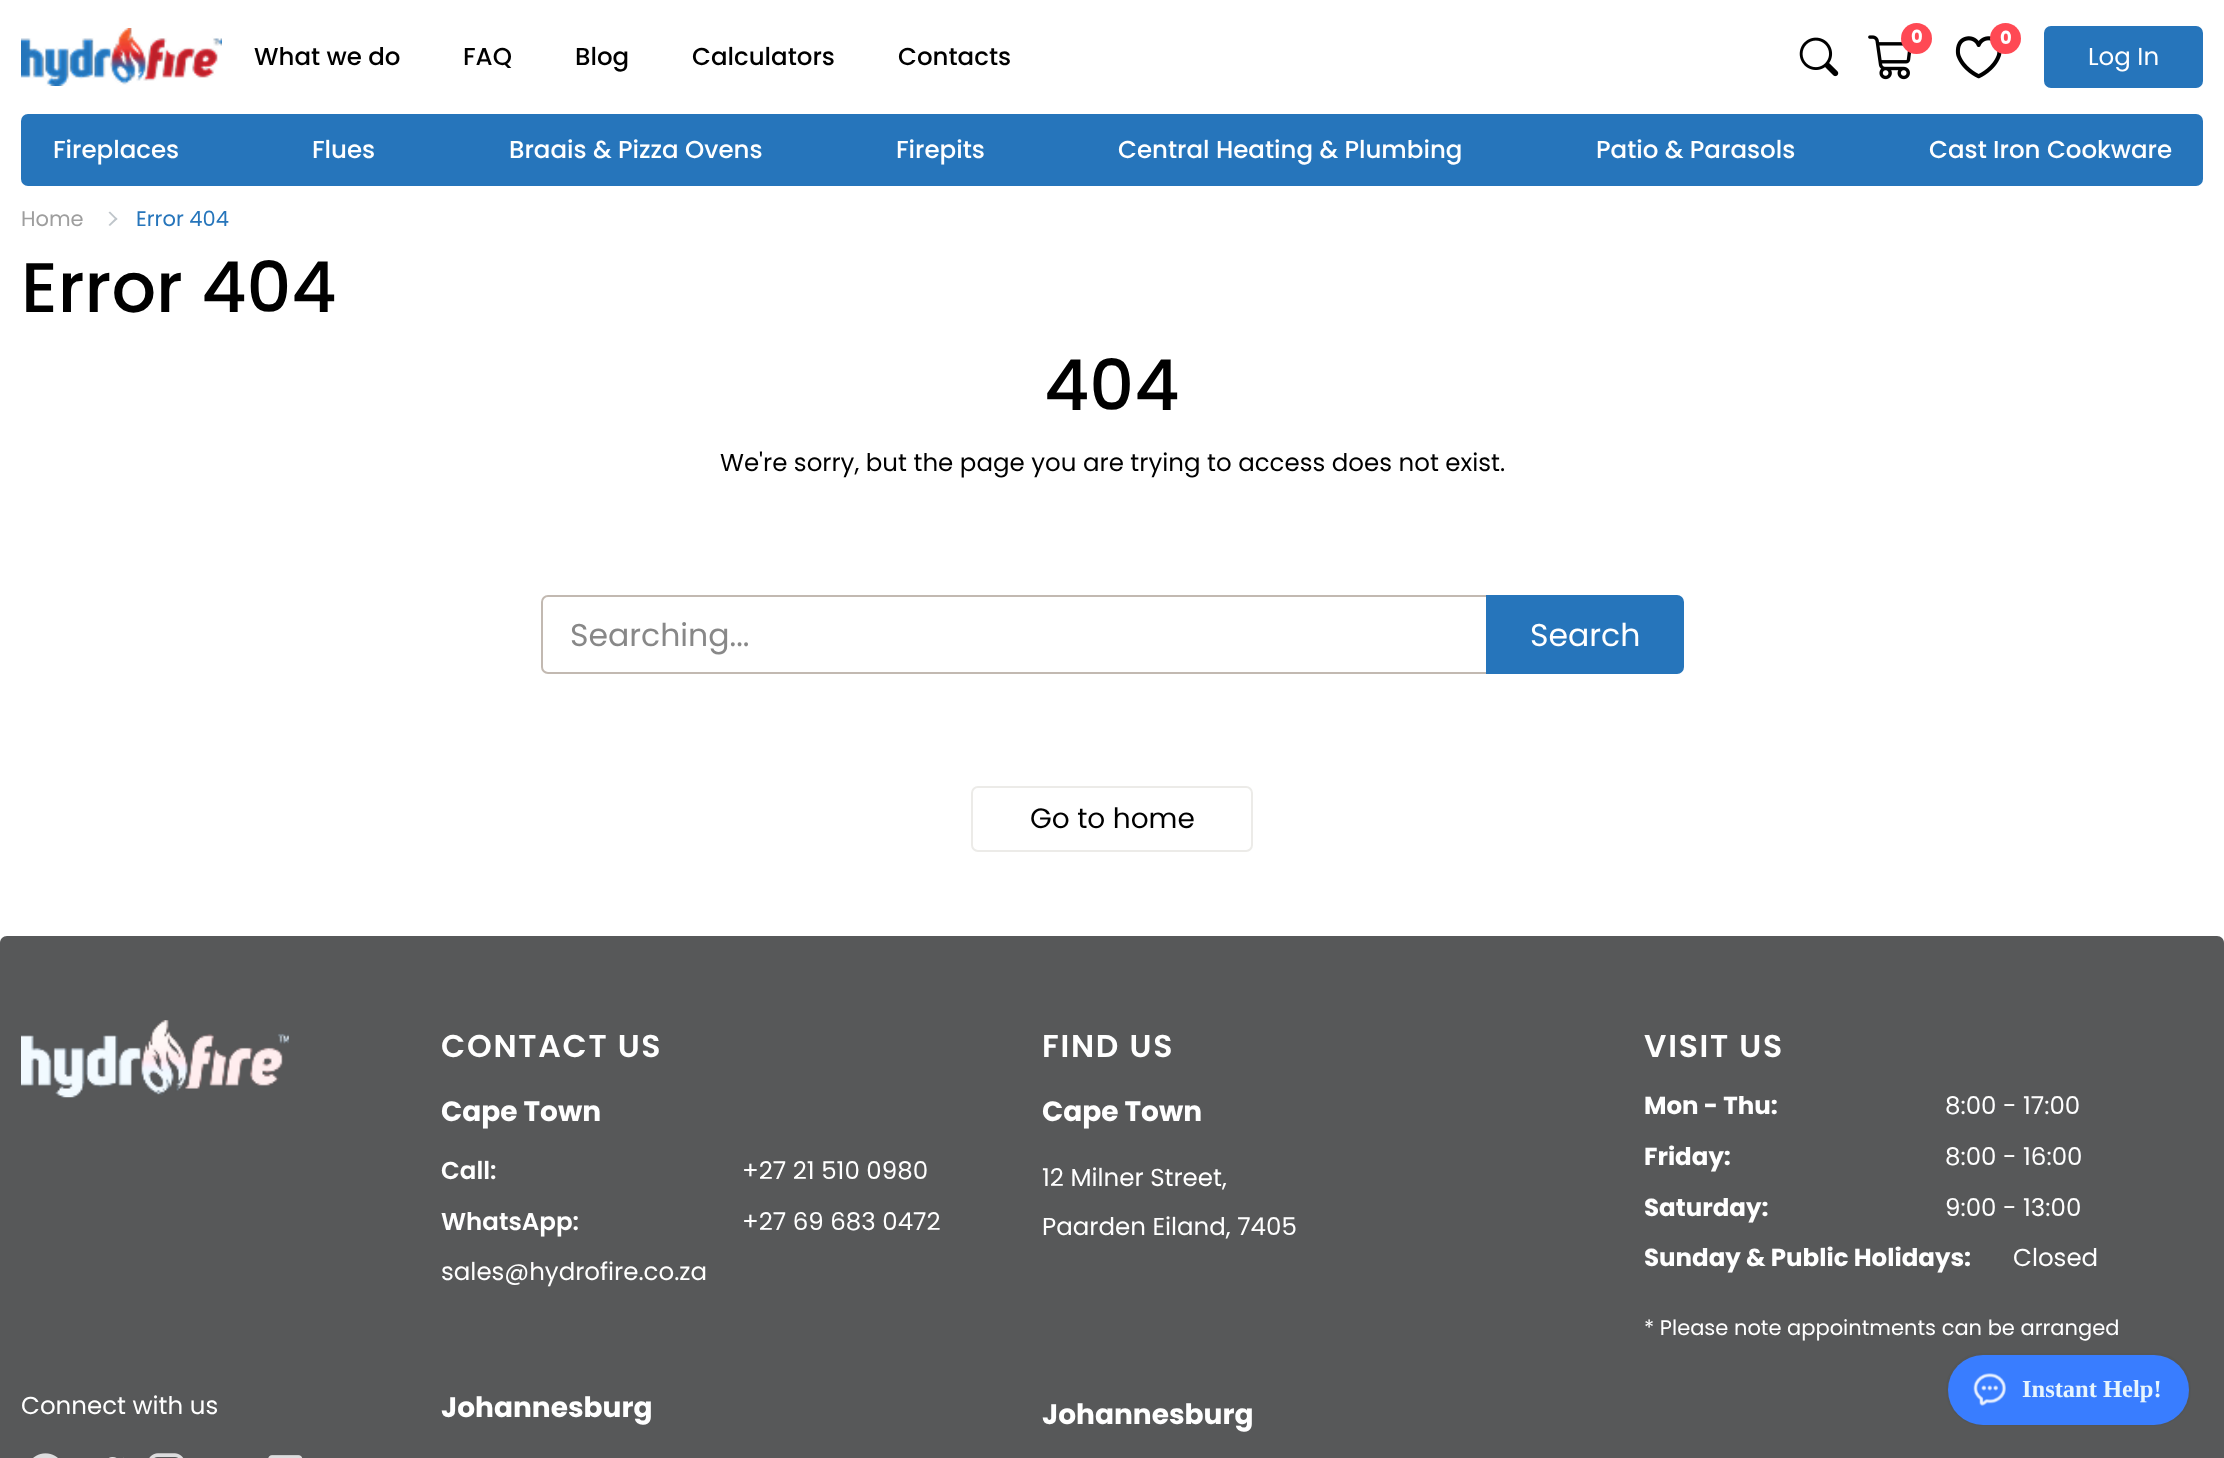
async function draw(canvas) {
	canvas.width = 2224;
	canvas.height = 1458;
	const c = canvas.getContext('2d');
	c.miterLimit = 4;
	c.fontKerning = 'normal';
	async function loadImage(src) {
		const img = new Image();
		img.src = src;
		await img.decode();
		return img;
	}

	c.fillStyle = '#fff';
	c.fillRect(0, 0, 2224, 1458);
	c.drawImage(await loadImage('img1.png'), 21, 28, 201, 58);
	c.font = '500 24.5px Poppins';
	c.fillStyle = '#000';
	for (const [text, x, y] of [
		['What we do', 254, 65],
		['FAQ', 463, 65],
		['Blog', 575, 65],
		['Calculators', 692, 65],
		['Contacts', 898, 65],
	]) {
		c.fillText(text, x, y);
	}
	c.drawImage(await loadImage('img2.png'), 1799, 37, 40, 40);
	c.drawImage(await loadImage('img3.png'), 1868, 35, 43, 45);
	c.fillStyle = '#ff4954';
	c.beginPath();
	c.arc(1916.5, 38.5, 15.5, 0, 2 * Math.PI);
	c.fill();
	c.font = 'bold 18px Poppins';
	c.fillStyle = '#fff';
	c.fillText('0', 1911, 43);
	c.drawImage(await loadImage('img4.png'), 1955, 36, 47, 43);
	c.fillStyle = '#ff4954';
	c.beginPath();
	c.arc(2005.5, 38.5, 15.5, 0, 2 * Math.PI);
	c.fill();
	c.fillStyle = '#fff';
	c.fillText('0', 2000, 44);
	c.fillStyle = '#2675bb';
	c.beginPath();
	c.roundRect(2045, 27, 157, 60, 6);
	c.fill();
	c.strokeStyle = '#2675bb';
	c.lineWidth = 2;
	c.stroke();
	c.font = '24.5px Poppins';
	c.fillStyle = '#fff';
	c.fillText('Log In', 2088, 65);
	c.fillStyle = '#2675bb';
	c.beginPath();
	c.roundRect(21, 114, 2182, 72, 7);
	c.fill();
	c.font = '500 24.5px Poppins';
	c.fillStyle = '#fff';
	for (const [text, x, y] of [
		['Fireplaces', 53, 158],
		['Flues', 312, 158],
		['Braais & Pizza Ovens', 509, 158],
		['Firepits', 896, 158],
		['Central Heating & Plumbing', 1118, 158],
		['Patio & Parasols', 1596, 158],
		['Cast Iron Cookware', 1929, 158],
	]) {
		c.fillText(text, x, y);
	}
	c.font = '21px Poppins';
	c.fillStyle = '#9e9e9e';
	c.fillText('Home', 21, 226);
	c.fillStyle = '#bfc5ca';
	c.beginPath();
	c.moveTo(110, 211.5);
	c.lineTo(117.5, 219);
	c.lineTo(116, 220);
	c.lineTo(108.5, 212.5);
	c.closePath();
	c.fill();
	c.beginPath();
	c.moveTo(116, 217.5);
	c.lineTo(117.5, 219);
	c.lineTo(110, 226);
	c.lineTo(108.5, 225);
	c.closePath();
	c.fill();
	c.fillStyle = '#2675bb';
	c.fillText('Error 404', 136, 226);
	c.font = '500 70px Poppins';
	c.fillStyle = '#000';
	c.fillText('Error 404', 21, 312);
	c.fillText('404', 1044, 410);
	c.font = '24.5px Poppins';
	c.fillText('We\'re sorry, but the page you are trying to access does not exist.', 720, 471);
	c.beginPath();
	c.roundRect(542, 596, 945, 77, [6, 0, 0, 6]);
	c.strokeStyle = '#c2b9b1';
	c.stroke();
	c.font = '31.5px Poppins';
	c.fillStyle = '#888';
	c.fillText('Searching...', 570, 646);
	c.fillStyle = '#2675bb';
	c.beginPath();
	c.roundRect(1487, 596, 196, 77, [0, 6, 6, 0]);
	c.fill();
	c.strokeStyle = '#2675bb';
	c.stroke();
	c.fillStyle = '#fff';
	c.fillText('Search', 1530, 646);
	c.beginPath();
	c.roundRect(972, 787, 280, 64, 6);
	c.strokeStyle = '#ecebe8';
	c.stroke();
	c.font = '28px Poppins';
	c.fillStyle = '#000';
	c.fillText('Go to home', 1030, 828);
	c.fillStyle = '#575859';
	c.beginPath();
	c.moveTo(7, 936);
	c.lineTo(2217, 936);
	c.bezierCurveTo(2221, 936, 2224, 939, 2224, 943);
	c.lineTo(2224, 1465);
	c.lineTo(0, 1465);
	c.lineTo(0, 943);
	c.bezierCurveTo(0, 939, 3, 936, 7, 936);
	c.closePath();
	c.fill();
	c.letterSpacing = '1.75px';
	c.font = '600 31.5px Poppins';
	c.fillStyle = '#fff';
	c.fillText('CONTACT US', 441, 1057);
	c.letterSpacing = '0px';
	c.font = 'bold 28px Poppins';
	c.fillText('Cape Town', 441, 1121);
	c.font = '600 24.5px Poppins';
	c.fillText('Call:', 441, 1179);
	c.font = '24.5px Poppins';
	c.fillText('+27 21 510 0980', 742, 1179);
	c.font = '600 24.5px Poppins';
	c.fillText('WhatsApp:', 441, 1230);
	c.font = '24.5px Poppins';
	c.fillText('+27 69 683 0472', 742, 1230);
	c.fillText('sales@hydrofire.co.za', 441, 1280);
	c.font = 'bold 28px Poppins';
	c.fillText('Johannesburg', 441, 1417);
	c.letterSpacing = '1.75px';
	c.font = '600 31.5px Poppins';
	c.fillText('FIND US', 1042, 1057);
	c.letterSpacing = '0px';
	c.font = 'bold 28px Poppins';
	c.fillText('Cape Town', 1042, 1121);
	c.font = '24.5px Poppins';
	c.fillText('12 Milner Street,', 1042, 1186);
	c.fillText('Paarden Eiland, 7405', 1042, 1235);
	c.font = 'bold 28px Poppins';
	c.fillText('Johannesburg', 1042, 1424);
	c.letterSpacing = '1.75px';
	c.font = '600 31.5px Poppins';
	c.fillText('VISIT US', 1644, 1057);
	c.letterSpacing = '0px';
	c.font = 'bold 24.5px Poppins';
	c.fillText('Mon - Thu:', 1644, 1114);
	c.font = '24.5px Poppins';
	c.fillText('8:00 - 17:00', 1945, 1114);
	c.font = 'bold 24.5px Poppins';
	c.fillText('Friday:', 1644, 1165);
	c.font = '24.5px Poppins';
	c.fillText('8:00 - 16:00', 1945, 1165);
	c.font = 'bold 24.5px Poppins';
	c.fillText('Saturday:', 1644, 1216);
	c.font = '24.5px Poppins';
	c.fillText('9:00 - 13:00', 1945, 1216);
	c.font = 'bold 24.5px Poppins';
	c.fillText('Sunday & Public Holidays:', 1644, 1266);
	c.font = '24.5px Poppins';
	c.fillText('Closed', 2013, 1266);
	c.font = '21px Poppins';
	c.fillText('* Please note appointments can be arranged', 1644, 1335);
	c.drawImage(await loadImage('img5.png'), 21, 1020, 268, 78);
	c.font = '24.5px Poppins';
	c.fillText('Connect with us', 21, 1414);
	c.drawImage(await loadImage('img6.png'), 33, 1453, 25, 5);
	c.drawImage(await loadImage('img7.png'), 109, 1457, 15, 1);
	c.drawImage(await loadImage('img8.png'), 149, 1453, 35, 5);
	c.drawImage(await loadImage('img9.png'), 268, 1455, 35, 3);
	c.beginPath();
	c.roundRect(1947, 1354, 243, 71, 35.5);
	c.strokeStyle = '#545657';
	c.stroke();
	c.fillStyle = '#397dff';
	c.beginPath();
	c.roundRect(1948, 1355, 241, 70, 35);
	c.fill();
	c.drawImage(await loadImage('img10.png'), 1973, 1373, 33, 33);
	c.font = 'bold 24.5px Liberation Serif';
	c.fillStyle = '#e7f5fd';
	c.fillText('Instant Help!', 2022, 1397);
}

draw(document.querySelector('canvas'));
